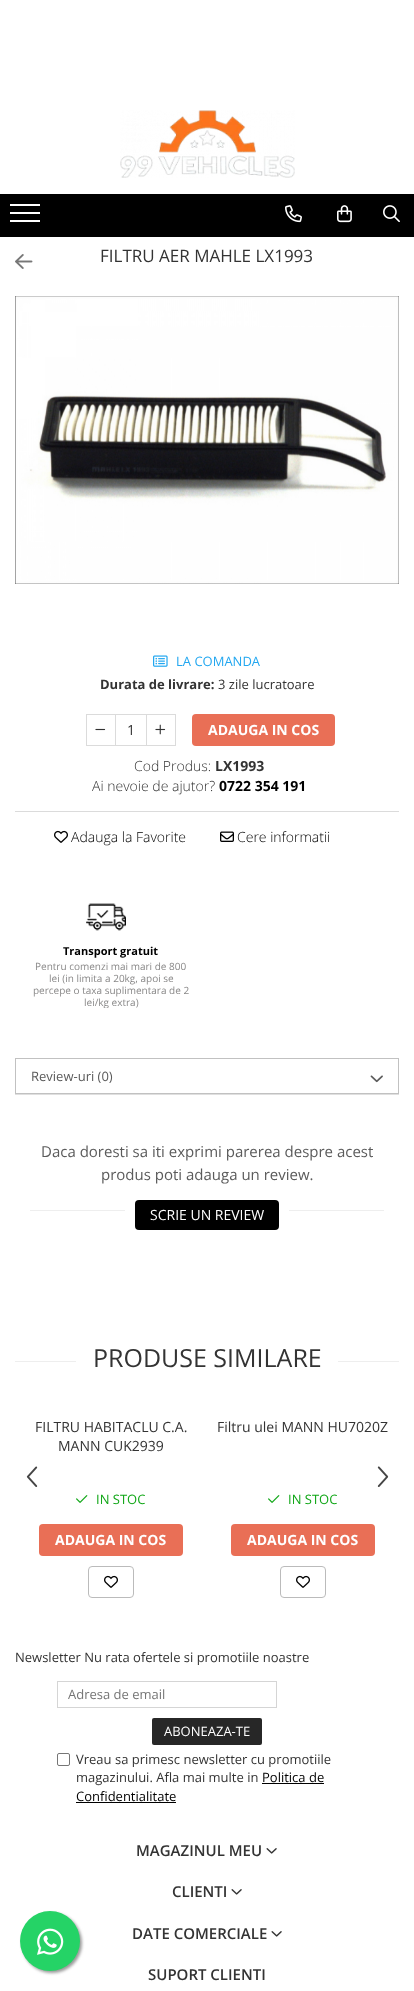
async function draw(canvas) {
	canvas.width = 414;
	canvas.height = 1991;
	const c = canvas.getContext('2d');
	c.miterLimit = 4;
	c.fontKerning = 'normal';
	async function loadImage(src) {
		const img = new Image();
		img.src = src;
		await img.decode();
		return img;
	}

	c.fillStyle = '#fff';
	c.fillRect(0, 0, 414, 1991);
	c.drawImage(await loadImage('img1.png'), 120, 110, 175, 68);
	for (const [x, y, w, h, color] of [
		[0, 194, 414, 43, '#000'],
		[10, 212, 30, 2, '#fff'],
		[10, 204, 30, 2, '#fff'],
		[10, 220, 30, 2, '#fff'],
	]) {
		c.fillStyle = color;
		c.fillRect(x, y, w, h);
	}
	c.drawImage(await loadImage('img2.png'), 285, 205, 17, 18);
	c.drawImage(await loadImage('img3.png'), 337, 205, 15, 18);
	c.drawImage(await loadImage('img4.png'), 383, 205, 17, 18);
	c.drawImage(await loadImage('img5.png'), 15, 254, 18, 15);
	c.font = '17px Open Sans';
	c.fillStyle = '#333';
	c.fillText('FILTRU AER MAHLE LX1993', 100, 262);
	c.drawImage(await loadImage('img6.png'), 15, 296, 384, 288);
	c.drawImage(await loadImage('img7.png'), 153, 655, 15, 12);
	c.font = '13px Open Sans';
	c.fillStyle = '#22a7f0';
	c.fillText('LA COMANDA', 176, 666);
	c.font = 'bold 13px Open Sans';
	c.fillStyle = '#333';
	c.fillText('Durata de livrare:', 100, 689);
	c.font = '13px Open Sans';
	c.fillText('3 zile lucratoare', 218, 689);
	c.strokeStyle = '#dbdbdb';
	c.strokeRect(86.5, 714.5, 29, 31);
	c.drawImage(await loadImage('img8.png'), 95, 728, 11, 3);
	c.fillStyle = '#dbdbdb';
	c.fillRect(116, 714, 30, 1);
	c.fillRect(116, 745, 30, 1);
	c.font = '14px Open Sans';
	c.fillStyle = '#333';
	c.fillText('1', 127, 735);
	c.strokeRect(146.5, 714.5, 29, 31);
	c.drawImage(await loadImage('img9.png'), 155, 724, 11, 11);
	c.fillStyle = '#e96f56';
	c.beginPath();
	c.roundRect(192, 714, 143, 32, 4);
	c.fill();
	c.font = 'bold 14px Open Sans';
	c.fillStyle = '#fff';
	c.fillText('ADAUGA IN COS', 208, 735);
	c.font = '300 14px Open Sans';
	c.fillStyle = '#333';
	c.fillText('Cod Produs:', 134, 771);
	c.font = 'bold 14px Open Sans';
	c.fillText('LX1993', 215, 771);
	c.font = '300 14px Open Sans';
	c.fillText('Ai nevoie de ajutor?', 92, 791);
	c.font = 'bold 14px Open Sans';
	c.fillStyle = '#000';
	c.fillText('0722 354 191', 219, 791);
	c.fillStyle = '#dbdbdb';
	c.fillRect(15, 811, 384, 1);
	c.drawImage(await loadImage('img10.png'), 54, 830, 14, 13);
	c.font = '300 14px Open Sans';
	c.fillStyle = '#000';
	c.fillText('Adauga la Favorite', 71, 842);
	c.drawImage(await loadImage('img11.png'), 220, 831, 14, 11);
	c.fillText('Cere informatii', 237, 842);
	c.drawImage(await loadImage('img12.png'), 86, 903, 40, 28);
	c.font = 'bold 11px Open Sans';
	c.fillText('Transport gratuit', 63, 955);
	c.font = '10px Open Sans';
	c.fillStyle = '#898888';
	for (const [text, x, y] of [
		['Pentru comenzi mai mari de 800', 35, 970],
		['lei (in limita a 20kg, apoi se', 49, 982],
		['percepe o taxa suplimentara de 2', 33, 994],
	]) {
		c.fillText(text, x, y);
	}
	c.save();
	c.beginPath();
	c.rect(30, 944, 162, 64);
	c.clip();
	c.fillText('lei/kg extra)', 84, 1006);
	c.restore();
	c.strokeStyle = '#c1c1c1';
	c.strokeRect(15.5, 1058.5, 383, 35);
	c.font = '13px Open Sans';
	c.fillStyle = '#5b5b5b';
	c.fillText('Review-uri (0)', 31, 1081);
	c.drawImage(await loadImage('img13.png'), 370, 1075, 13, 8);
	c.fillStyle = '#dfdfdf';
	c.fillRect(15, 1094, 384, 1);
	c.font = '15px Open Sans';
	c.fillStyle = '#5b5b5b';
	c.fillText('Daca doresti sa iti exprimi parerea despre acest', 41, 1157);
	c.fillText('produs poti adauga un review.', 101, 1180);
	c.fillStyle = '#eee';
	c.fillRect(30, 1210, 354, 1);
	c.fillStyle = '#fff';
	c.fillRect(125, 1210, 164, 1);
	c.fillStyle = '#000';
	c.beginPath();
	c.roundRect(135, 1200, 144, 30, 4);
	c.fill();
	c.font = '14px Open Sans';
	c.fillStyle = '#fff';
	c.fillText('SCRIE UN REVIEW', 150, 1220);
	c.fillStyle = '#eee';
	c.fillRect(15, 1361, 384, 1);
	c.fillStyle = '#fff';
	c.fillRect(76, 1361, 262, 1);
	c.font = '25px Open Sans';
	c.fillStyle = '#333';
	c.fillText('PRODUSE SIMILARE', 93, 1367);
	c.font = '14px Open Sans';
	c.fillText('FILTRU HABITACLU C.A.', 35, 1432);
	c.fillText('MANN CUK2939', 58, 1451);
	c.drawImage(await loadImage('img14.png'), 76, 1495, 12, 8);
	c.font = '13px Open Sans';
	c.fillStyle = '#11a717';
	c.fillText('IN STOC', 96, 1504);
	c.fillStyle = '#e96f56';
	c.beginPath();
	c.roundRect(39, 1524, 144, 32, 4);
	c.fill();
	c.font = 'bold 14px Open Sans';
	c.fillStyle = '#fff';
	c.fillText('ADAUGA IN COS', 55, 1545);
	c.beginPath();
	c.roundRect(88.5, 1566.5, 45, 31, 3.5);
	c.strokeStyle = '#bbb';
	c.stroke();
	c.drawImage(await loadImage('img10.png'), 104, 1575, 14, 13);
	c.font = '14px Open Sans';
	c.fillStyle = '#333';
	c.fillText('Filtru ulei MANN HU7020Z', 217, 1432);
	c.drawImage(await loadImage('img14.png'), 268, 1495, 12, 8);
	c.font = '13px Open Sans';
	c.fillStyle = '#11a717';
	c.fillText('IN STOC', 288, 1504);
	c.fillStyle = '#e96f56';
	c.beginPath();
	c.roundRect(231, 1524, 144, 32, 4);
	c.fill();
	c.font = 'bold 14px Open Sans';
	c.fillStyle = '#fff';
	c.fillText('ADAUGA IN COS', 247, 1545);
	c.beginPath();
	c.roundRect(280.5, 1566.5, 45, 31, 3.5);
	c.stroke();
	c.drawImage(await loadImage('img10.png'), 296, 1575, 14, 13);
	c.drawImage(await loadImage('img15.png'), 26, 1466, 12, 21);
	c.drawImage(await loadImage('img16.png'), 377, 1466, 12, 21);
	c.font = '13px Open Sans';
	c.fillStyle = '#333';
	c.fillText('Newsletter Nu rata ofertele si promotiile noastre', 15, 1662);
	c.strokeStyle = '#d5d5d5';
	c.strokeRect(57.5, 1681.5, 219, 26);
	c.fillStyle = '#757575';
	c.fillText('Adresa de email', 68, 1699);
	c.fillStyle = '#272727';
	c.beginPath();
	c.roundRect(152, 1718, 110, 27, 2);
	c.fill();
	c.fillStyle = '#fff';
	c.fillText('ABONEAZA-TE', 164, 1736);
	c.beginPath();
	c.roundRect(57.5, 1753.5, 12, 12, 1.5);
	c.strokeStyle = '#767676';
	c.stroke();
	c.fillStyle = '#333';
	c.fillText('Vreau sa primesc newsletter cu promotiile', 76, 1764);
	c.fillText('magazinului. Afla mai multe in', 76, 1782);
	c.fillStyle = '#000';
	c.fillText('Politica de', 262, 1782);
	c.fillRect(262, 1783, 62, 1);
	c.fillText('Confidentialitate', 76, 1801);
	c.fillRect(76, 1802, 100, 1);
	c.font = '600 15px Open Sans';
	c.fillStyle = '#333';
	c.fillText('MAGAZINUL MEU', 136, 1856);
	c.drawImage(await loadImage('img17.png'), 266, 1848, 11, 6);
	c.fillText('CLIENTI', 172, 1897);
	c.drawImage(await loadImage('img17.png'), 231, 1889, 11, 6);
	c.fillText('DATE COMERCIALE', 132, 1939);
	c.drawImage(await loadImage('img17.png'), 271, 1931, 11, 6);
	c.fillText('SUPORT CLIENTI', 148, 1980);
	c.fillStyle = '#999';
	c.filter = 'blur(1.5px)';
	c.beginPath();
	c.roundRect(22, 1913, 60, 60, 30);
	c.fill();
	c.filter = 'none';
	c.fillStyle = '#25d366';
	c.beginPath();
	c.arc(50, 1941, 30, 0, 2 * Math.PI);
	c.fill();
	c.drawImage(await loadImage('img18.png'), 37, 1928, 27, 27);
}

draw(document.querySelector('canvas'));
